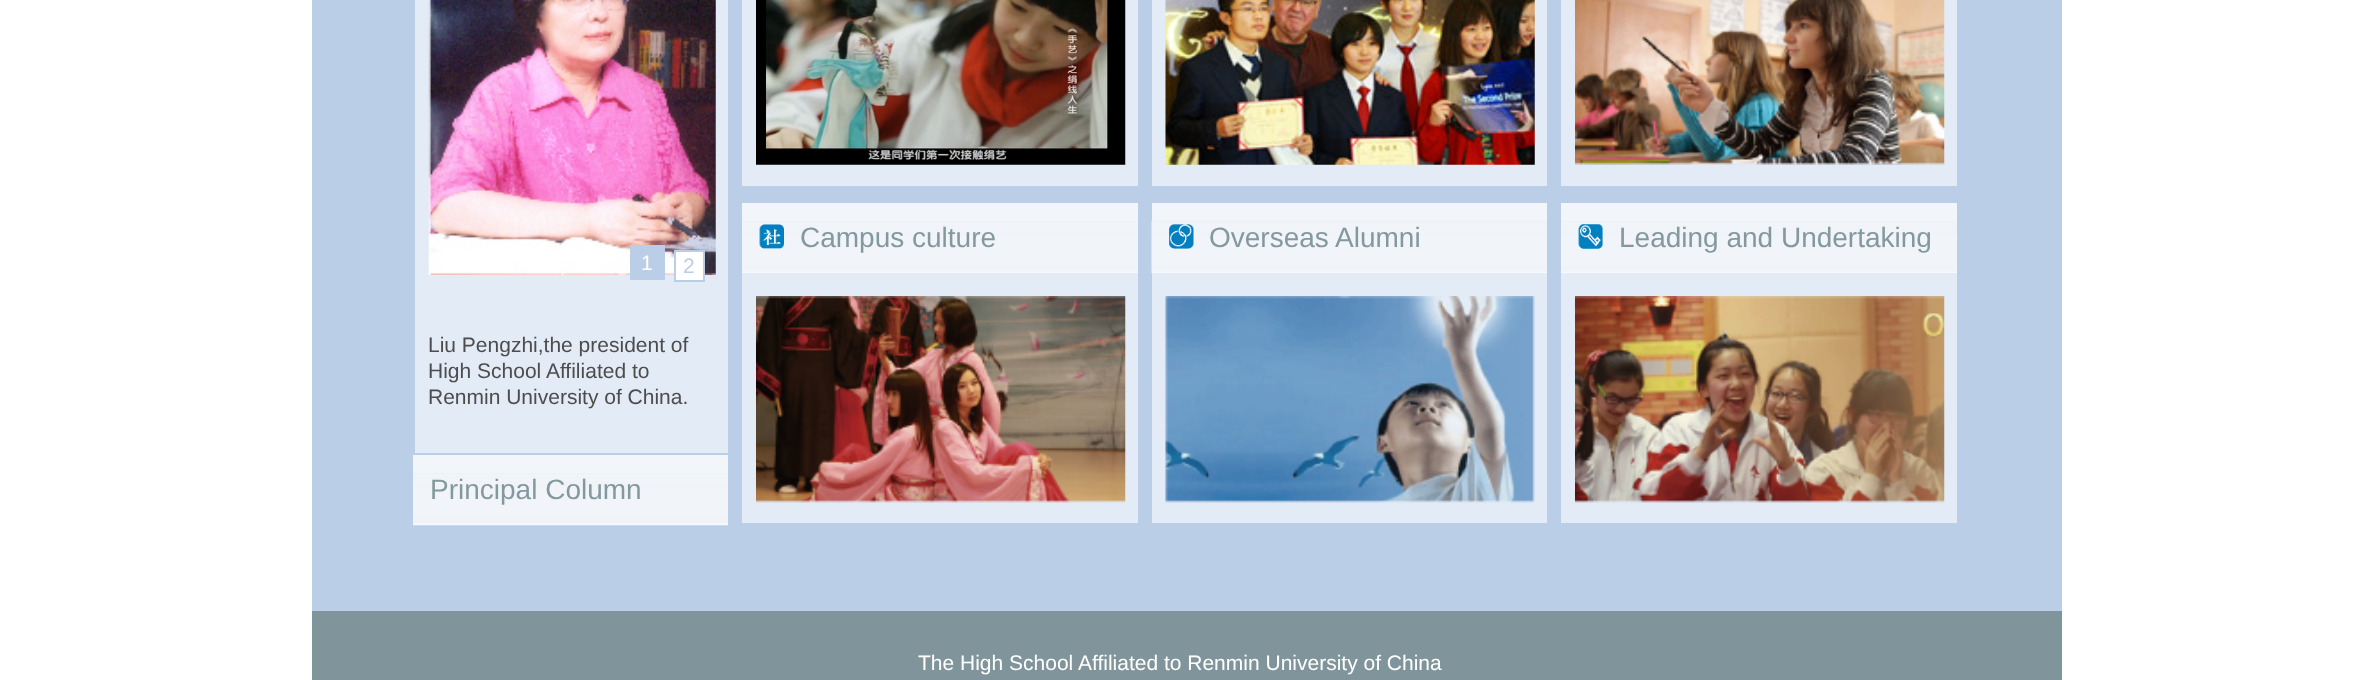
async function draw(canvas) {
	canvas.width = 2371;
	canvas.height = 680;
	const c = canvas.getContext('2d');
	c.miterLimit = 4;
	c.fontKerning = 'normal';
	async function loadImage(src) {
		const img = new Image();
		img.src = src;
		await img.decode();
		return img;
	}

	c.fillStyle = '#fff';
	c.fillRect(0, 0, 2371, 680);
	c.fillStyle = '#bacee8';
	c.fillRect(312, 0, 1750, 611);
	c.fillStyle = '#e3ebf6';
	c.fillRect(742, 0, 396, 186);
	c.drawImage(await loadImage('img1.png'), 756, 0, 370, 165);
	c.fillRect(1152, 0, 395, 186);
	c.drawImage(await loadImage('img2.png'), 1165, 0, 370, 165);
	c.fillRect(1561, 0, 396, 186);
	c.drawImage(await loadImage('img3.png'), 1575, 0, 370, 165);
	c.fillStyle = '#f2f5fa';
	c.fillRect(742, 203, 396, 70);
	c.drawImage(await loadImage('img4.png'), 742, 221, 396, 52);
	c.drawImage(await loadImage('img5.png'), 759, 224, 25, 25);
	c.font = '28px Liberation Sans';
	c.fillStyle = '#83999e';
	c.fillText('Campus culture', 800, 247);
	c.fillStyle = '#e3ebf6';
	c.fillRect(742, 273, 396, 250);
	c.drawImage(await loadImage('img6.png'), 756, 296, 370, 207);
	c.fillStyle = '#f2f5fa';
	c.fillRect(1152, 203, 395, 18);
	c.drawImage(await loadImage('img7.png'), 1151, 220, 396, 54);
	c.drawImage(await loadImage('img8.png'), 1169, 224, 25, 25);
	c.fillStyle = '#83999e';
	c.fillText('Overseas Alumni', 1209, 247);
	c.fillStyle = '#e3ebf6';
	c.fillRect(1152, 273, 395, 250);
	c.drawImage(await loadImage('img9.png'), 1165, 296, 370, 207);
	c.fillStyle = '#f2f5fa';
	c.fillRect(1561, 203, 396, 70);
	c.drawImage(await loadImage('img4.png'), 1561, 221, 396, 52);
	c.drawImage(await loadImage('img10.png'), 1578, 224, 25, 25);
	c.fillStyle = '#83999e';
	c.fillText('Leading and Undertaking', 1619, 247);
	c.fillStyle = '#e3ebf6';
	c.fillRect(1561, 273, 396, 250);
	c.drawImage(await loadImage('img11.png'), 1575, 296, 370, 207);
	c.fillRect(415, 0, 313, 453);
	c.drawImage(await loadImage('img12.png'), 428, 0, 288, 275);
	c.fillStyle = '#bacee8';
	c.fillRect(630, 245, 35, 35);
	c.font = '21px Liberation Sans';
	c.fillStyle = '#fff';
	c.fillText('1', 641, 270);
	c.beginPath();
	c.rect(675, 251, 29, 30);
	c.fill();
	c.strokeStyle = '#bacee8';
	c.lineWidth = 2;
	c.stroke();
	c.fillStyle = '#bacee8';
	c.fillText('2', 683, 273);
	c.fillStyle = '#4d4d4d';
	for (const [text, x, y] of [
		['Liu Pengzhi,the president of', 428, 352],
		['High School Affiliated to', 428, 378],
		['Renmin University of China.', 428, 404],
	]) {
		c.fillText(text, x, y);
	}
	c.fillStyle = '#f2f5fa';
	c.fillRect(413, 455, 315, 18);
	c.drawImage(await loadImage('img13.png'), 413, 473, 315, 53);
	c.font = '28px Liberation Sans';
	c.fillStyle = '#83999e';
	c.fillText('Principal Column', 430, 499);
	c.fillStyle = '#80959b';
	c.fillRect(312, 611, 1750, 69);
	c.font = '21px Liberation Sans';
	c.fillStyle = '#fff';
	c.fillText('The High School Affiliated to Renmin University of China', 918, 670);
}

draw(document.querySelector('canvas'));
